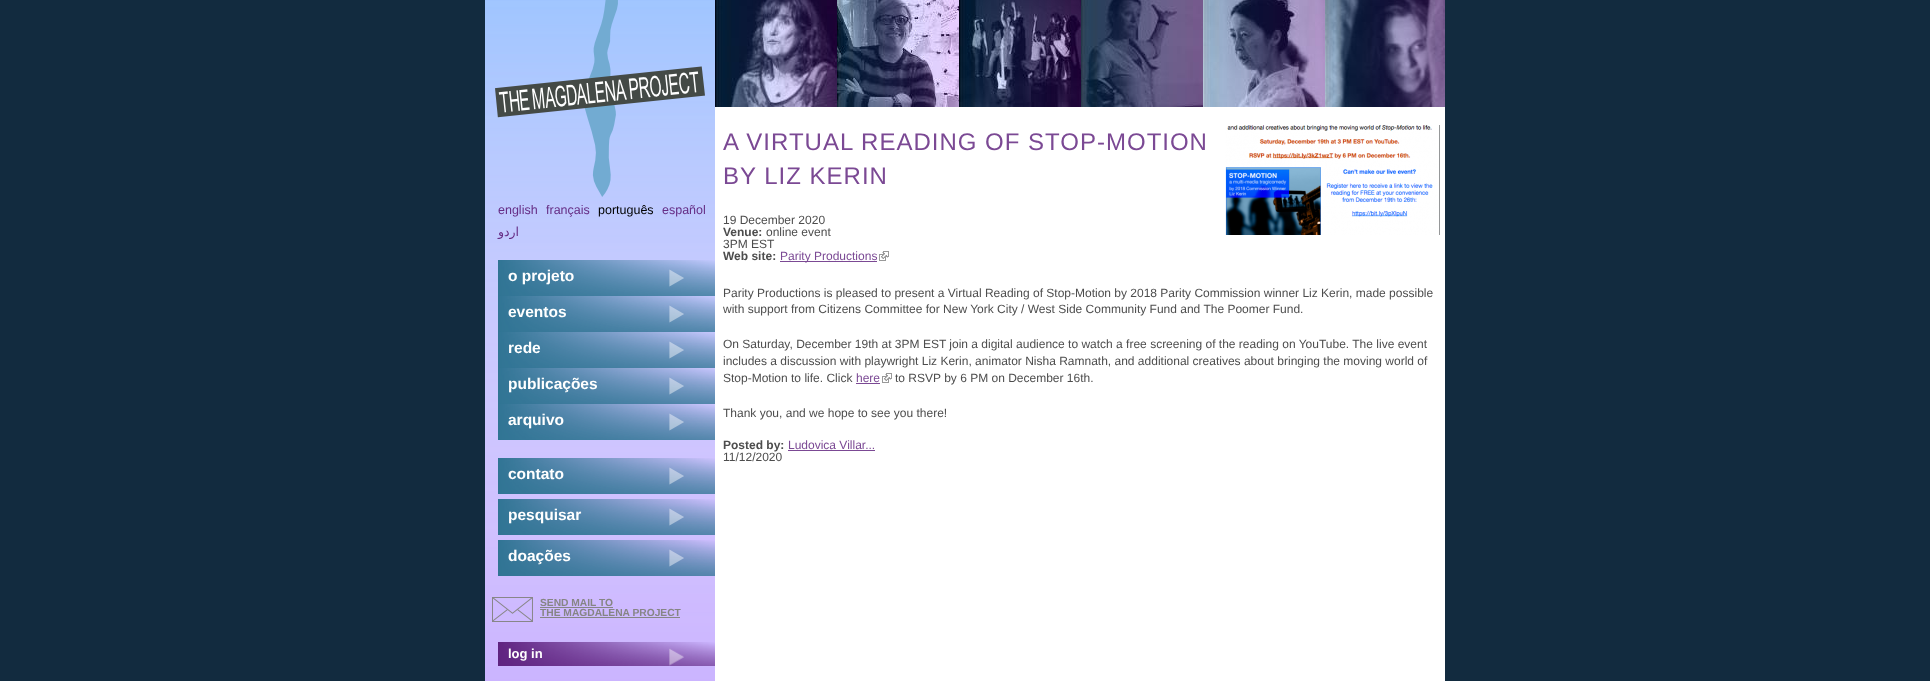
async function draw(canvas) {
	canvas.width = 1930;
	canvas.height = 681;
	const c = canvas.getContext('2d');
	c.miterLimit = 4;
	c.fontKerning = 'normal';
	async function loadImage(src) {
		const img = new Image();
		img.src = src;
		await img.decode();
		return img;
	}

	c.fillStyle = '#122b3f';
	c.fillRect(0, 0, 1930, 681);
	c.fillStyle = '#fff';
	c.fillRect(715, 107, 730, 574);
	c.fillStyle = '#c8afff';
	c.fillRect(485, 0, 230, 681);
	c.drawImage(await loadImage('img1.png'), 485, 0, 230, 681);
	c.drawImage(await loadImage('img2.png'), 495, 0, 210, 197);
	c.drawImage(await loadImage('img3.png'), 715, 0, 122, 107);
	c.drawImage(await loadImage('img4.png'), 837, 0, 122, 107);
	c.drawImage(await loadImage('img5.png'), 959, 0, 122, 107);
	c.drawImage(await loadImage('img6.png'), 1081, 0, 122, 107);
	c.drawImage(await loadImage('img7.png'), 1203, 0, 122, 107);
	c.drawImage(await loadImage('img8.png'), 1325, 0, 120, 107);
	c.font = '12.5px Liberation Sans';
	c.fillStyle = '#662d85';
	c.fillText('english', 498, 214);
	c.fillText('français', 546, 214);
	c.fillStyle = '#000';
	c.fillText('português', 598, 214);
	c.fillStyle = '#662d85';
	c.fillText('español', 662, 214);
	c.direction = 'rtl';
	c.font = '12.5px DejaVu Sans';
	c.fillText('اردو', 519, 236);
	c.drawImage(await loadImage('img9.png'), 498, 260, 217, 36);
	c.direction = 'ltr';
	c.font = 'bold 15.5px Liberation Sans';
	c.fillStyle = '#fff';
	c.fillText('o projeto', 508, 281);
	c.drawImage(await loadImage('img10.png'), 498, 296, 217, 36);
	c.fillText('eventos', 508, 317);
	c.drawImage(await loadImage('img11.png'), 498, 332, 217, 36);
	c.fillText('rede', 508, 353);
	c.drawImage(await loadImage('img12.png'), 498, 368, 217, 36);
	c.fillText('publicações', 508, 389);
	c.drawImage(await loadImage('img13.png'), 498, 404, 217, 36);
	c.fillText('arquivo', 508, 425);
	c.drawImage(await loadImage('img14.png'), 498, 458, 217, 36);
	c.fillText('contato', 508, 479);
	c.drawImage(await loadImage('img15.png'), 498, 499, 217, 36);
	c.fillText('pesquisar', 508, 520);
	c.drawImage(await loadImage('img16.png'), 498, 540, 217, 36);
	c.fillText('doações', 508, 561);
	c.drawImage(await loadImage('img17.png'), 492, 597, 41, 25);
	c.font = 'bold 10.25px Liberation Sans';
	c.fillStyle = '#868585';
	c.fillText('SEND MAIL TO', 540, 606);
	c.fillRect(540, 607, 73, 1);
	c.fillText('THE MAGDALENA PROJECT', 540, 616);
	c.fillRect(540, 617, 140, 1);
	c.drawImage(await loadImage('img18.png'), 498, 642, 217, 24);
	c.font = 'bold 13px Liberation Sans';
	c.fillStyle = '#fff';
	c.fillText('log in', 508, 658);
	c.letterSpacing = '1px';
	c.font = '24px Liberation Sans';
	c.fillStyle = '#7b4994';
	c.fillText('A VIRTUAL READING OF STOP-MOTION', 723, 150);
	c.fillText('BY LIZ KERIN', 723, 184);
	c.drawImage(await loadImage('img19.png'), 1225, 125, 215, 110);
	c.letterSpacing = '0px';
	c.font = '12px Liberation Sans';
	c.fillStyle = '#4d4d4d';
	c.fillText('19 December 2020', 723, 224);
	c.font = 'bold 12px Liberation Sans';
	c.fillText('Venue:', 723, 236);
	c.font = '12px Liberation Sans';
	c.fillText('online event', 766, 236);
	c.fillText('3PM EST', 723, 248);
	c.font = 'bold 12px Liberation Sans';
	c.fillText('Web site:', 723, 260);
	c.fillStyle = '#7b4994';
	c.fillRect(780, 261, 97, 1);
	c.font = '12px Liberation Sans';
	c.fillText('Parity Productions', 780, 260);
	c.drawImage(await loadImage('img20.png'), 879, 251, 10, 10);
	c.fillStyle = '#4d4d4d';
	for (const [text, x, y] of [
		['Parity Productions is pleased to present a Virtual Reading of Stop-Motion by 2018 Parity Commission winner Liz Kerin, made possible', 723, 297],
		['with support from Citizens Committee for New York City / West Side Community Fund and The Poomer Fund.', 723, 313],
		['On Saturday, December 19th at 3PM EST join a digital audience to watch a free screening of the reading on YouTube. The live event', 723, 348],
		['includes a discussion with playwright Liz Kerin, animator Nisha Ramnath, and additional creatives about bringing the moving world of', 723, 365],
		['Stop-Motion to life. Click', 723, 382],
	]) {
		c.fillText(text, x, y);
	}
	c.fillStyle = '#7b4994';
	c.fillText('here', 856, 382);
	c.fillRect(856, 383, 24, 1);
	c.drawImage(await loadImage('img20.png'), 882, 373, 10, 10);
	c.fillStyle = '#4d4d4d';
	c.fillText('to RSVP by 6 PM on December 16th.', 895, 382);
	c.fillText('Thank you, and we hope to see you there!', 723, 417);
	c.font = 'bold 12px Liberation Sans';
	c.fillText('Posted by:', 723, 449);
	c.font = '12px Liberation Sans';
	c.fillStyle = '#7b4994';
	c.fillText('Ludovica Villar...', 788, 449);
	c.fillRect(788, 450, 87, 1);
	c.fillStyle = '#4d4d4d';
	c.fillText('11/12/2020', 723, 461);
}

draw(document.querySelector('canvas'));
